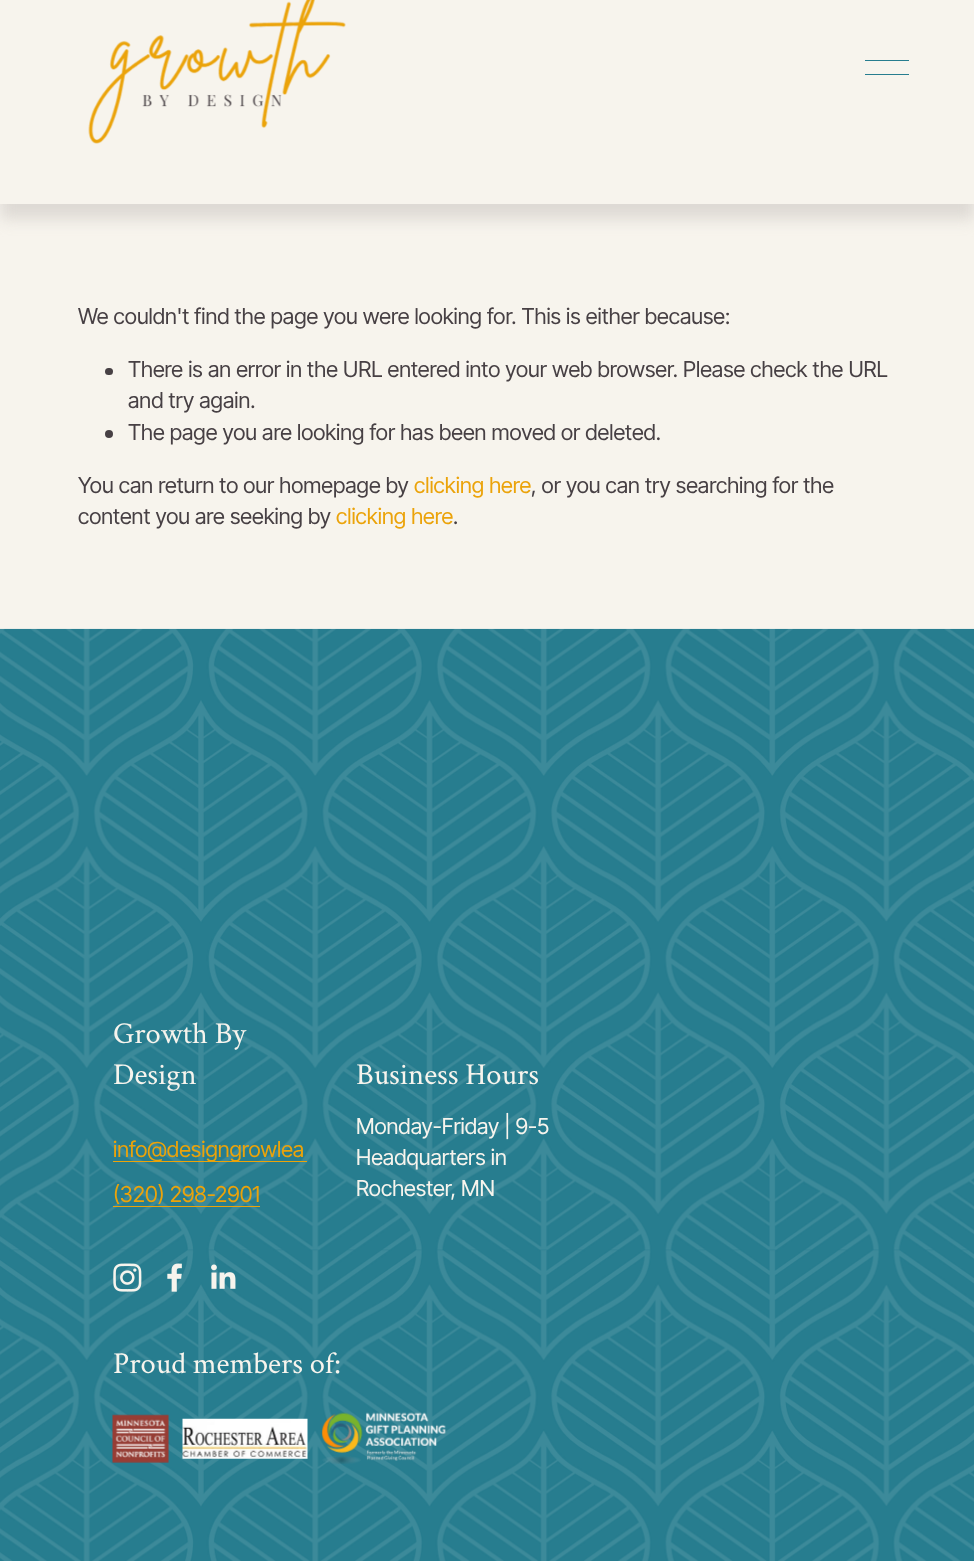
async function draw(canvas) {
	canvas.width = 974;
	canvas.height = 1561;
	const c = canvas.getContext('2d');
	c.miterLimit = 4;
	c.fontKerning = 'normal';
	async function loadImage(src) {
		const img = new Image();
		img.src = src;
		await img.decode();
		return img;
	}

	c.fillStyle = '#f7f4ed';
	c.fillRect(0, 0, 974, 1561);
	c.save();
	c.beginPath();
	c.moveTo(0, 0);
	c.lineTo(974, 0);
	c.lineTo(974, 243);
	c.lineTo(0, 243);
	c.closePath();
	c.moveTo(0, -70);
	c.lineTo(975, -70);
	c.lineTo(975, 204);
	c.lineTo(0, 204);
	c.closePath();
	c.clip('evenodd');
	c.fillStyle = '#ddd9d4';
	c.filter = 'blur(7.5px)';
	c.beginPath();
	c.rect(0, -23, 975, 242);
	c.fill();
	c.filter = 'none';
	c.restore();
	c.drawImage(await loadImage('img1.png'), 88, 0, 258, 144);
	c.fillStyle = '#277d8f';
	c.fillRect(865, 60, 44, 1);
	c.fillRect(865, 74, 44, 1);
	c.font = '21.9px Inter Tight';
	c.fillStyle = '#474044';
	c.fillText('We couldn\'t find the page you were looking for. This is either because:', 78, 324);
	c.beginPath();
	c.roundRect(105, 368, 8, 7, 3.5);
	c.fill();
	c.fillText('There is an error in the URL entered into your web browser. Please check the URL', 128, 377);
	c.fillText('and try again.', 128, 408);
	c.beginPath();
	c.arc(109, 434, 4, 0, 2 * Math.PI);
	c.fill();
	c.fillText('The page you are looking for has been moved or deleted.', 128, 440);
	c.fillText('You can return to our homepage by', 78, 493);
	c.fillStyle = '#eba30a';
	c.fillText('clicking here', 414, 493);
	c.fillStyle = '#474044';
	c.fillText(', or you can try searching for the', 531, 493);
	c.fillText('content you are seeking by', 78, 524);
	c.fillStyle = '#eba30a';
	c.fillText('clicking here', 336, 524);
	c.fillStyle = '#474044';
	c.fillText('.', 453, 524);
	c.drawImage(await loadImage('img2.png'), 0, 628, 974, 933);
	c.font = '30.5px Crimson Text';
	c.fillStyle = '#f7f4ed';
	for (const [text, x, y] of [
		['Growth By', 113, 1043],
		['Design', 113, 1084],
		['Business Hours', 356, 1084],
	]) {
		c.fillText(text, x, y);
	}
	c.fillStyle = '#eba30a';
	c.fillRect(113, 1161, 194, 1);
	c.font = '21.9px Inter Tight';
	c.fillText('info@designgrowlea', 113, 1157);
	c.fillStyle = '#f7f4ed';
	for (const [text, x, y] of [
		['Monday-Friday | 9-5', 356, 1134],
		['Headquarters in', 356, 1165],
		['Rochester, MN', 356, 1196],
	]) {
		c.fillText(text, x, y);
	}
	c.fillStyle = '#eba30a';
	c.fillText('(320) 298-2901', 113, 1202);
	c.fillRect(113, 1206, 147, 1);
	c.drawImage(await loadImage('img3.png'), 113, 1263, 29, 29);
	c.drawImage(await loadImage('img4.png'), 167, 1263, 15, 29);
	c.drawImage(await loadImage('img5.png'), 211, 1264, 25, 25);
	c.font = '30.5px Crimson Text';
	c.fillStyle = '#f7f4ed';
	c.fillText('Proud members of:', 113, 1373);
	c.drawImage(await loadImage('img6.png'), 112, 1414, 57, 49);
	c.drawImage(await loadImage('img7.png'), 182, 1418, 126, 41);
	c.drawImage(await loadImage('img8.png'), 321, 1412, 125, 52);
}

draw(document.querySelector('canvas'));
